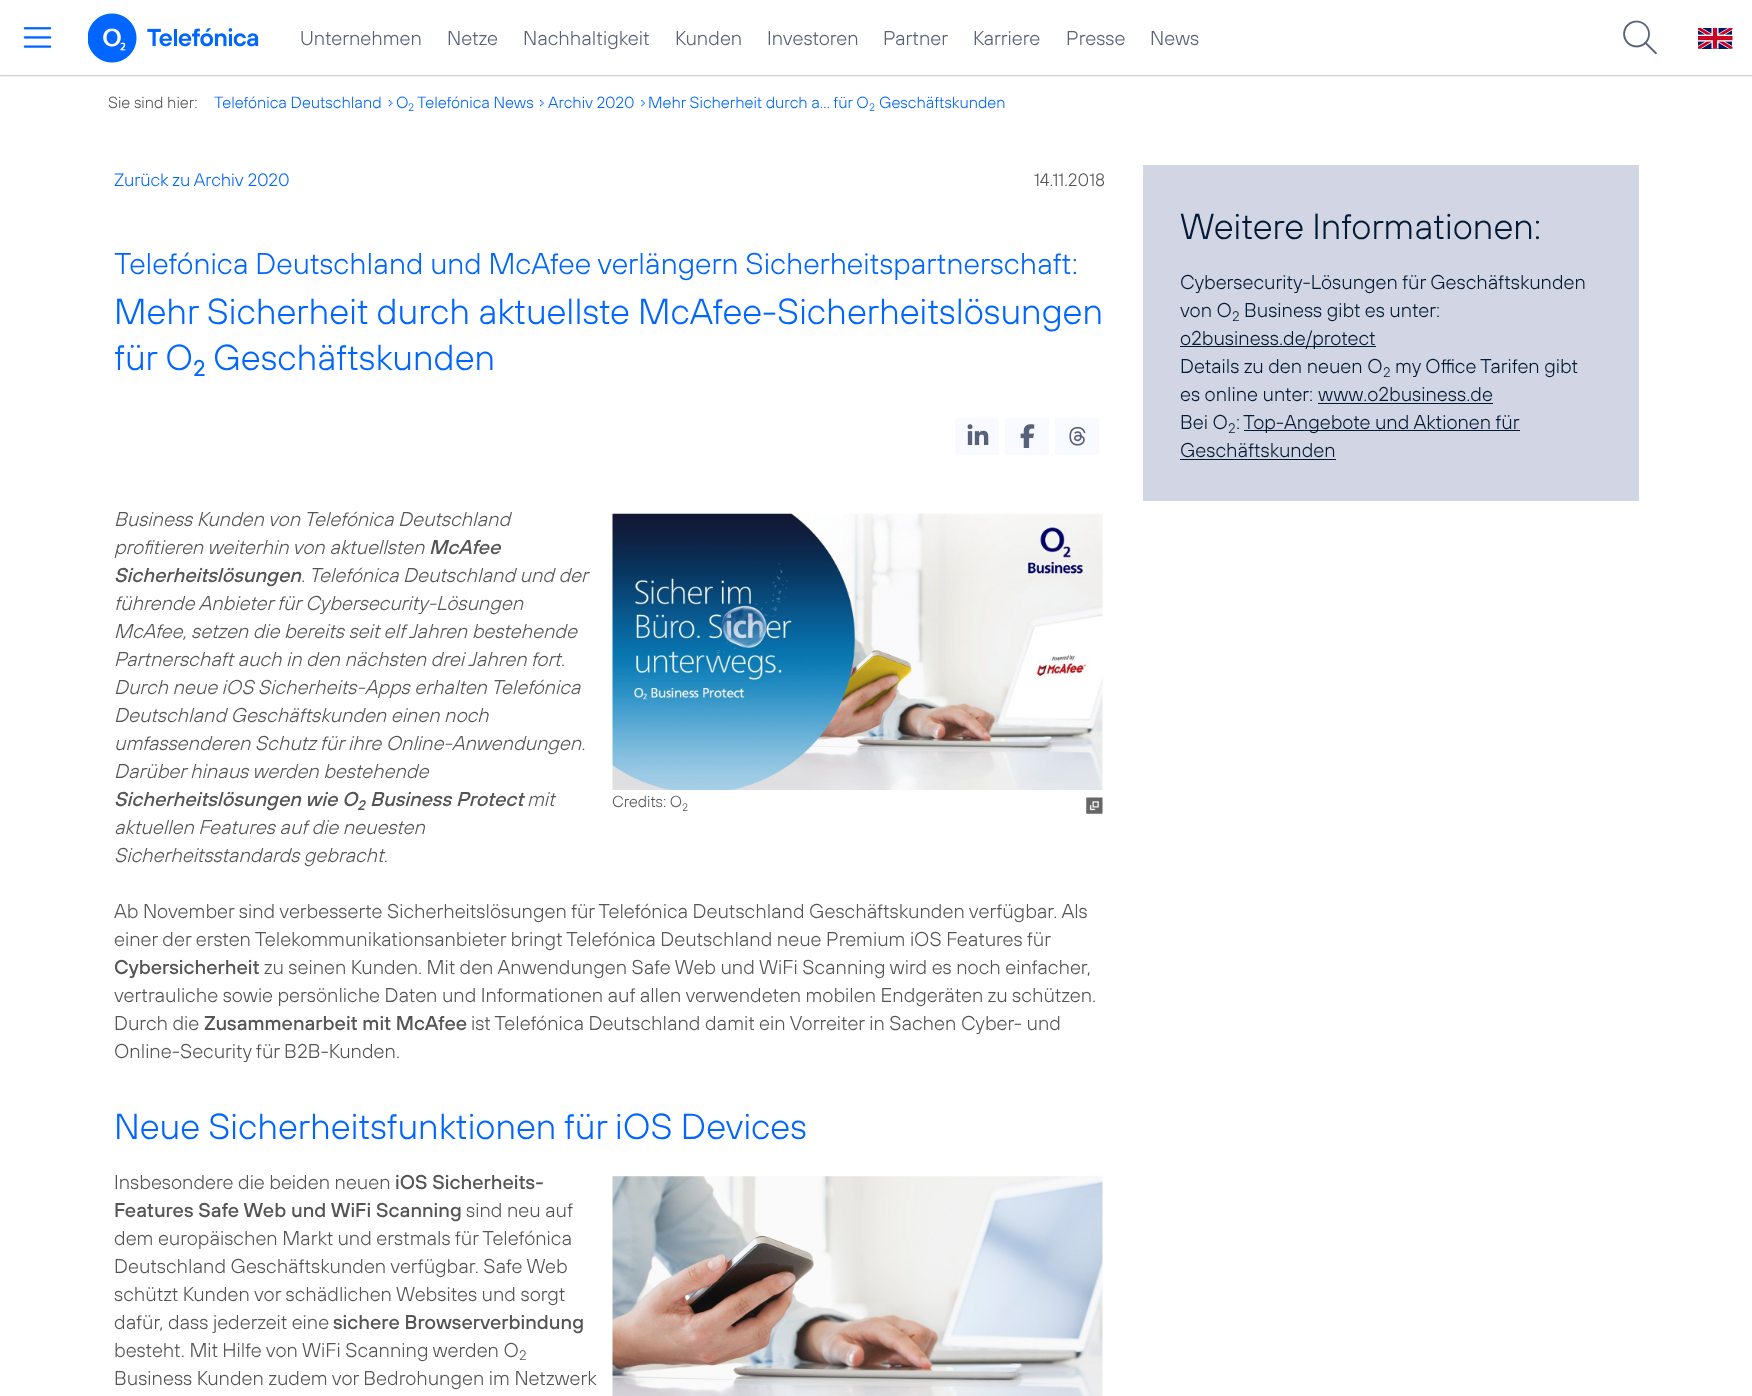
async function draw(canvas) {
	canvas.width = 1752;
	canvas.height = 1396;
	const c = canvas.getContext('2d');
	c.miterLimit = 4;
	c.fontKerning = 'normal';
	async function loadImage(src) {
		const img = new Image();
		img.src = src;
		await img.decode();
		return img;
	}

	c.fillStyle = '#fff';
	c.fillRect(0, 0, 1752, 1396);
	c.save();
	c.beginPath();
	c.rect(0, 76, 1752, 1);
	c.clip();
	c.fillStyle = '#00000033';
	c.filter = 'blur(1px)';
	c.beginPath();
	c.rect(0, 0, 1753, 76);
	c.fill();
	c.filter = 'none';
	c.restore();
	c.fillStyle = '#d3d4d3';
	c.fillRect(0, 75, 1752, 1);
	c.drawImage(await loadImage('img1.png'), 23, 27, 29, 21);
	c.drawImage(await loadImage('img2.png'), 88, 13, 171, 50);
	c.font = '300 20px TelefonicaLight';
	c.fillStyle = '#58617a';
	for (const [text, x, y] of [
		['Unternehmen', 300, 45],
		['Netze', 447, 45],
		['Nachhaltigkeit', 523, 45],
		['Kunden', 675, 45],
		['Investoren', 767, 45],
		['Partner', 883, 45],
		['Karriere', 973, 45],
		['Presse', 1066, 45],
		['News', 1150, 45],
	]) {
		c.fillText(text, x, y);
	}
	c.drawImage(await loadImage('img3.png'), 1623, 20, 34, 35);
	c.drawImage(await loadImage('img4.png'), 1698, 28, 35, 21);
	c.font = '300 16.25px TelefonicaLight';
	c.fillStyle = '#555';
	c.fillText('Sie sind hier:', 108, 108);
	c.fillStyle = '#06f';
	c.fillText('Telefónica Deutschland', 214, 108);
	c.drawImage(await loadImage('img5.png'), 388, 100, 5, 7);
	c.fillText('O', 396, 108);
	c.font = '300 11px TelefonicaLight';
	c.fillText('2', 408, 111);
	c.font = '300 16.25px TelefonicaLight';
	c.fillText('Telefónica News', 417, 108);
	c.drawImage(await loadImage('img6.png'), 540, 100, 4, 7);
	c.fillText('Archiv 2020', 548, 108);
	c.drawImage(await loadImage('img7.png'), 641, 100, 4, 7);
	c.fillText('Mehr Sicherheit durch a... für O', 648, 108);
	c.font = '300 11px TelefonicaLight';
	c.fillText('2', 869, 111);
	c.font = '300 16.25px TelefonicaLight';
	c.fillText('Geschäftskunden', 879, 108);
	c.font = '300 18px TelefonicaLight';
	c.fillText('Zurück zu Archiv 2020', 114, 186);
	c.fillStyle = '#555';
	c.fillText('14.11.2018', 1034, 186);
	c.font = '300 30px TelefonicaLight';
	c.fillStyle = '#06f';
	c.fillText('Telefónica Deutschland und McAfee verlängern Sicherheitspartnerschaft:', 114, 274);
	c.font = '300 36.25px TelefonicaLight';
	c.fillText('Mehr Sicherheit durch aktuellste McAfee-Sicherheitslösungen', 114, 324);
	c.fillText('für O', 114, 370);
	c.font = 'bold 22px TelefonicaLight';
	c.fillText('2', 193, 376);
	c.font = '300 36.25px TelefonicaLight';
	c.fillText('Geschäftskunden', 213, 370);
	c.fillStyle = '#f9faff';
	c.beginPath();
	c.roundRect(955, 418, 44, 37, 2.5);
	c.fill();
	c.drawImage(await loadImage('img8.png'), 967, 424, 22, 21);
	c.beginPath();
	c.roundRect(1005, 418, 44, 37, 2.5);
	c.fill();
	c.drawImage(await loadImage('img9.png'), 1020, 424, 15, 24);
	c.beginPath();
	c.roundRect(1055, 418, 44, 37, 2.5);
	c.fill();
	c.drawImage(await loadImage('img10.png'), 1069, 426, 17, 20);
	c.font = 'italic 300 20px TelefonicaLight';
	c.fillStyle = '#555';
	c.fillText('Business Kunden von Telefónica Deutschland', 114, 526);
	c.fillText('profitieren weiterhin von aktuellsten', 114, 554);
	c.font = 'italic 500 20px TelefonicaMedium';
	c.fillText('McAfee', 429, 554);
	c.fillText('Sicherheitslösungen', 114, 582);
	c.font = 'italic 300 20px TelefonicaLight';
	for (const [text, x, y] of [
		['. Telefónica Deutschland und der', 301, 582],
		['führende Anbieter für Cybersecurity-Lösungen', 114, 610],
		['McAfee, setzen die bereits seit elf Jahren bestehende', 114, 638],
		['Partnerschaft auch in den nächsten drei Jahren fort.', 114, 666],
		['Durch neue iOS Sicherheits-Apps erhalten Telefónica', 114, 694],
		['Deutschland Geschäftskunden einen noch', 114, 722],
		['umfassenderen Schutz für ihre Online-Anwendungen.', 114, 750],
		['Darüber hinaus werden bestehende', 114, 778],
	]) {
		c.fillText(text, x, y);
	}
	c.font = 'italic 500 20px TelefonicaMedium';
	c.fillText('Sicherheitslösungen wie O', 114, 806);
	c.font = 'italic 500 14px TelefonicaMedium';
	c.fillText('2', 357, 810);
	c.font = 'italic 500 20px TelefonicaMedium';
	c.fillText('Business Protect', 370, 806);
	c.font = 'italic 300 20px TelefonicaLight';
	for (const [text, x, y] of [
		['mit', 527, 806],
		['aktuellen Features auf die neuesten', 114, 834],
		['Sicherheitsstandards gebracht.', 114, 862],
	]) {
		c.fillText(text, x, y);
	}
	c.font = '300 20px TelefonicaLight';
	c.fillText('Ab November sind verbesserte Sicherheitslösungen für Telefónica Deutschland Geschäftskunden verfügbar. Als', 114, 918);
	c.fillText('einer der ersten Telekommunikationsanbieter bringt Telefónica Deutschland neue Premium iOS Features für', 114, 946);
	c.font = '500 20px TelefonicaMedium';
	c.fillText('Cybersicherheit', 114, 974);
	c.font = '300 20px TelefonicaLight';
	for (const [text, x, y] of [
		['zu seinen Kunden. Mit den Anwendungen Safe Web und WiFi Scanning wird es noch einfacher,', 264, 974],
		['vertrauliche sowie persönliche Daten und Informationen auf allen verwendeten mobilen Endgeräten zu schützen.', 114, 1002],
		['Durch die', 114, 1030],
	]) {
		c.fillText(text, x, y);
	}
	c.font = '500 20px TelefonicaMedium';
	c.fillText('Zusammenarbeit mit McAfee', 204, 1030);
	c.font = '300 20px TelefonicaLight';
	c.fillText('ist Telefónica Deutschland damit ein Vorreiter in Sachen Cyber- und', 471, 1030);
	c.fillText('Online-Security für B2B-Kunden.', 114, 1058);
	c.drawImage(await loadImage('img11.png'), 612, 513, 491, 277);
	c.font = '300 16px TelefonicaLight';
	c.fillText('Credits: O', 612, 807);
	c.font = '300 11px TelefonicaLight';
	c.fillText('2', 682, 811);
	c.drawImage(await loadImage('img12.png'), 1086, 797, 17, 17);
	c.font = '300 36.25px TelefonicaLight';
	c.fillStyle = '#06f';
	c.fillText('Neue Sicherheitsfunktionen für iOS Devices', 114, 1139);
	c.font = '300 20px TelefonicaLight';
	c.fillStyle = '#555';
	c.fillText('Insbesondere die beiden neuen', 114, 1189);
	c.font = '500 20px TelefonicaMedium';
	c.fillText('iOS Sicherheits-', 395, 1189);
	c.fillText('Features Safe Web und WiFi Scanning', 114, 1217);
	c.font = '300 20px TelefonicaLight';
	for (const [text, x, y] of [
		['sind neu auf', 466, 1217],
		['dem europäischen Markt und erstmals für Telefónica', 114, 1245],
		['Deutschland Geschäftskunden verfügbar. Safe Web', 114, 1273],
		['schützt Kunden vor schädlichen Websites und sorgt', 114, 1301],
		['dafür, dass jederzeit eine', 114, 1329],
	]) {
		c.fillText(text, x, y);
	}
	c.font = '500 20px TelefonicaMedium';
	c.fillText('sichere Browserverbindung', 333, 1329);
	c.font = '300 20px TelefonicaLight';
	c.fillText('besteht. Mit Hilfe von WiFi Scanning werden O', 114, 1357);
	c.font = '300 14px TelefonicaLight';
	c.fillText('2', 519, 1360);
	c.font = '300 20px TelefonicaLight';
	c.fillText('Business Kunden zudem vor Bedrohungen im Netzwerk', 114, 1385);
	c.drawImage(await loadImage('img13.png'), 612, 1176, 491, 220);
	c.fillStyle = '#d1d5e4';
	c.fillRect(1143, 165, 496, 336);
	c.font = '300 36.25px TelefonicaLight';
	c.fillStyle = '#031a34';
	c.fillText('Weitere Informationen:', 1180, 239);
	c.font = '300 20px TelefonicaLight';
	c.fillText('Cybersecurity-Lösungen für Geschäftskunden', 1180, 289);
	c.fillText('von O', 1180, 317);
	c.font = '300 14px TelefonicaLight';
	c.fillText('2', 1232, 321);
	c.font = '300 20px TelefonicaLight';
	c.fillText('Business gibt es unter:', 1244, 317);
	c.fillRect(1180, 346, 196, 1);
	c.fillText('o2business.de/protect', 1180, 345);
	c.fillText('Details zu den neuen O', 1180, 373);
	c.font = '300 14px TelefonicaLight';
	c.fillText('2', 1383, 377);
	c.font = '300 20px TelefonicaLight';
	for (const [text, x, y] of [
		['my Office Tarifen gibt', 1395, 373],
		['es online unter:', 1180, 401],
		['www.o2business.de', 1318, 401],
	]) {
		c.fillText(text, x, y);
	}
	c.fillRect(1318, 403, 175, 1);
	c.fillText('Bei O', 1180, 429);
	c.font = '300 14px TelefonicaLight';
	c.fillText('2', 1228, 433);
	c.font = '300 20px TelefonicaLight';
	c.fillText(':', 1236, 429);
	c.fillRect(1244, 430, 276, 1);
	c.fillText('Top-Angebote und Aktionen für', 1243, 429);
	c.fillText('Geschäftskunden', 1180, 457);
	c.fillRect(1180, 459, 156, 1);
}

draw(document.querySelector('canvas'));
